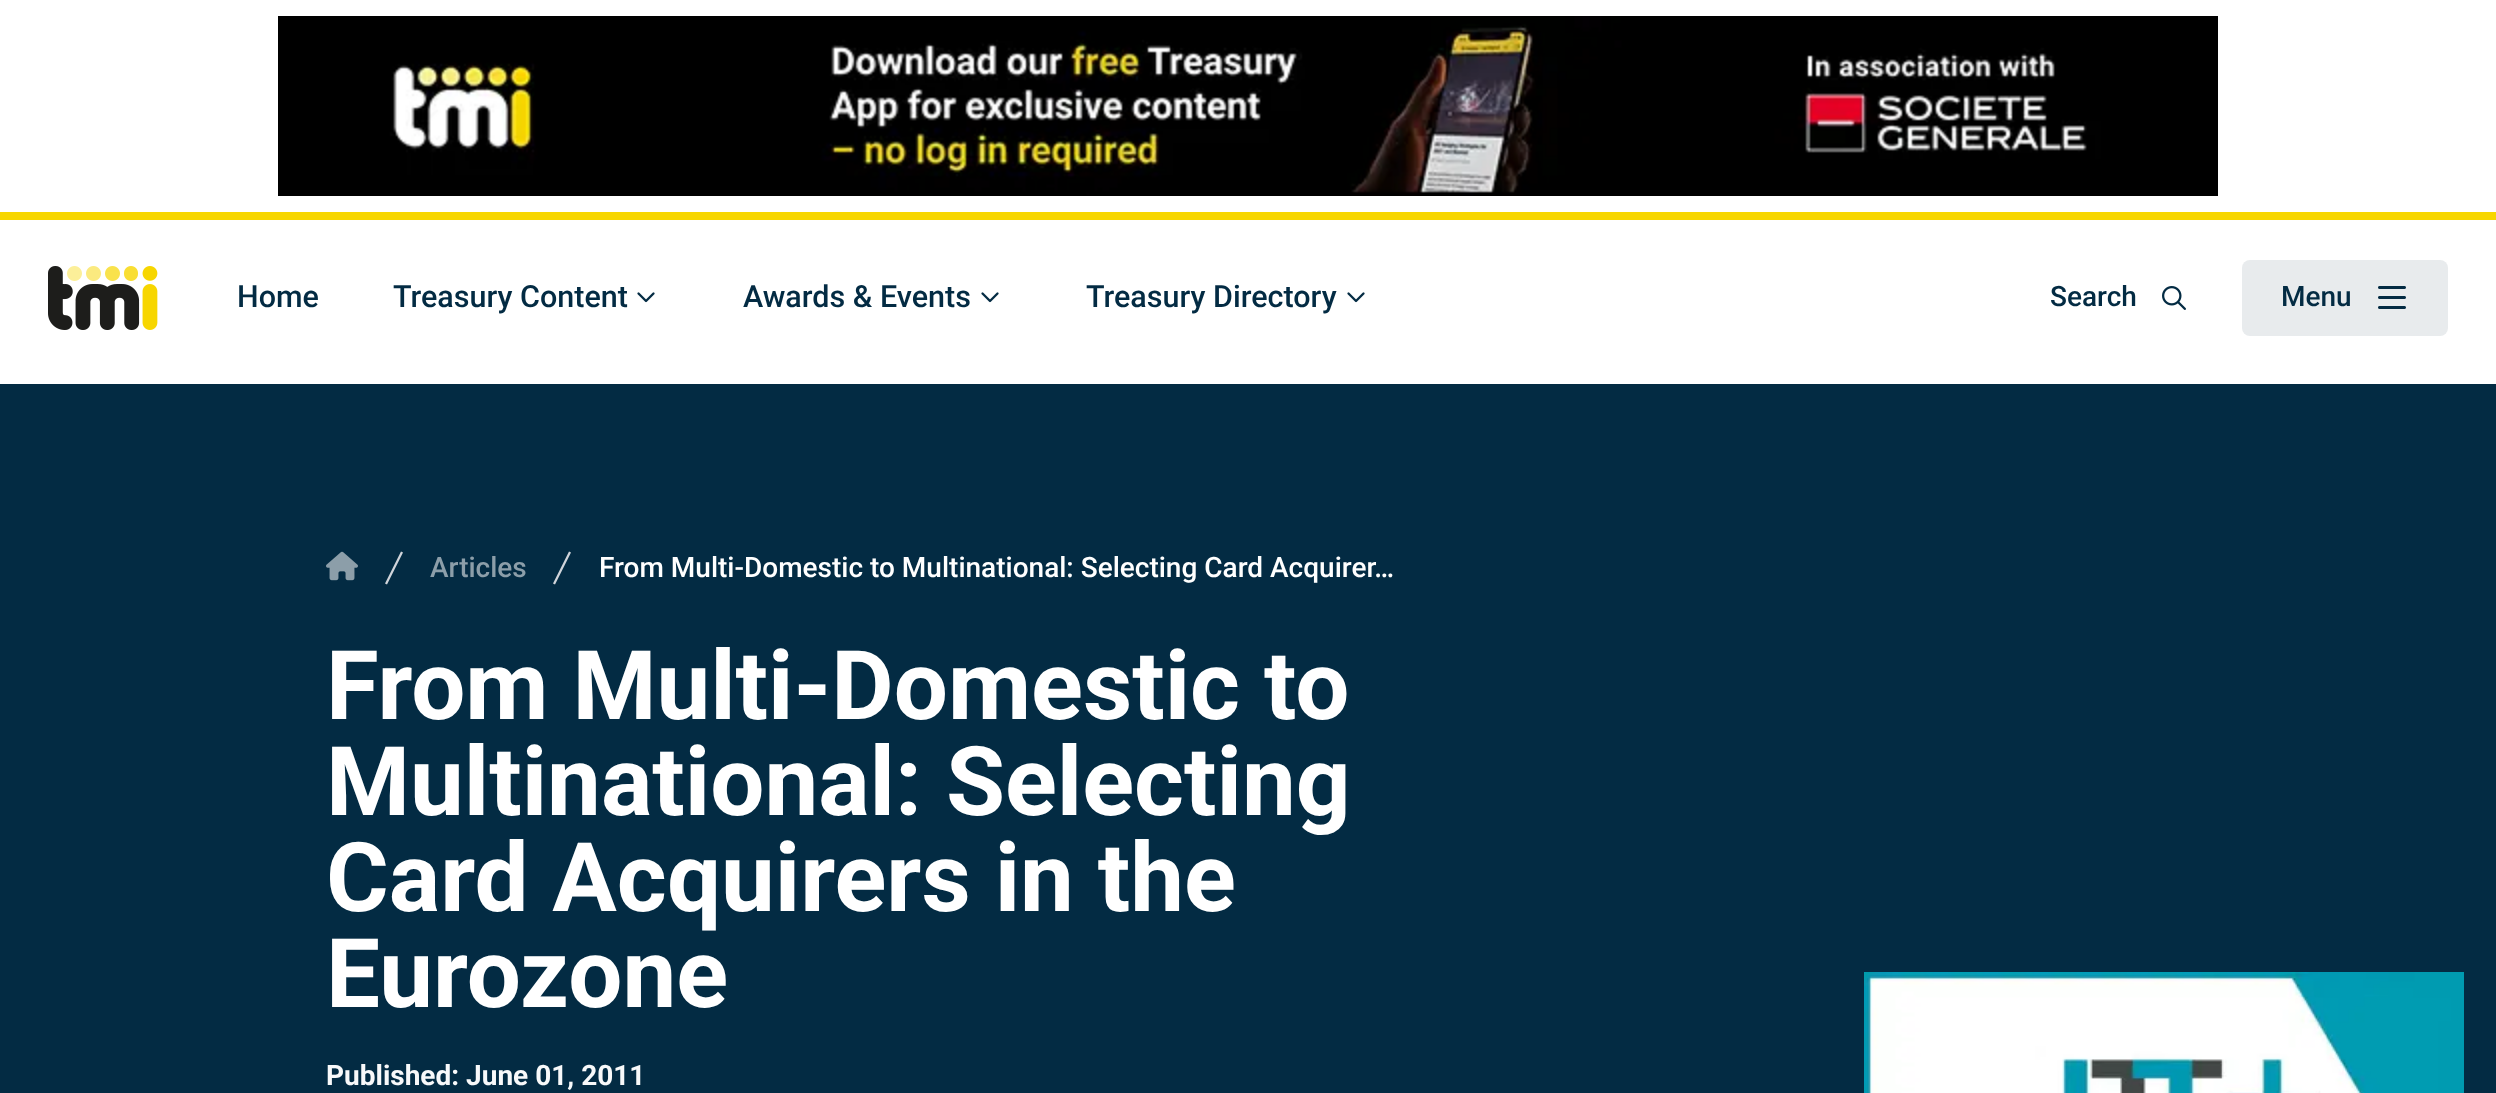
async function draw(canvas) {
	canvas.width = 2496;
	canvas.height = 1093;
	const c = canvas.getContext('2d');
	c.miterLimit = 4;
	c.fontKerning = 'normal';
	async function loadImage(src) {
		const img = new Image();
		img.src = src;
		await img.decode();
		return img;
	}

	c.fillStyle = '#fff';
	c.fillRect(0, 0, 2496, 1093);
	c.drawImage(await loadImage('img1.png'), 278, 16, 1940, 180);
	c.fillStyle = '#f7d600';
	c.fillRect(0, 212, 2496, 8);
	c.drawImage(await loadImage('img2.png'), 48, 266, 110, 64);
	c.font = '500 30.5px Roboto';
	c.fillStyle = '#032b43';
	c.fillText('Home', 237, 307);
	c.fillText('Treasury Content', 393, 307);
	c.drawImage(await loadImage('img3.png'), 637, 292, 18, 11);
	c.fillText('Awards & Events', 743, 307);
	c.drawImage(await loadImage('img3.png'), 981, 292, 18, 11);
	c.fillText('Treasury Directory', 1086, 307);
	c.drawImage(await loadImage('img3.png'), 1347, 292, 18, 11);
	c.font = '500 28px Roboto';
	c.fillText('Search', 2050, 306);
	c.drawImage(await loadImage('img4.png'), 2162, 286, 24, 24);
	c.fillStyle = '#e8ebed';
	c.beginPath();
	c.roundRect(2242, 260, 206, 76, 8);
	c.fill();
	c.fillStyle = '#032b43';
	c.fillText('Menu', 2281, 306);
	c.drawImage(await loadImage('img5.png'), 2378, 286, 28, 23);
	c.fillRect(0, 384, 2496, 709);
	c.drawImage(await loadImage('img6.png'), 326, 551, 32, 30);
	c.fillStyle = '#d1d5db';
	c.beginPath();
	c.moveTo(385, 583.5);
	c.lineTo(401, 551.5);
	c.lineTo(403, 552.5);
	c.lineTo(387, 584.5);
	c.closePath();
	c.fill();
	c.fillStyle = '#8c9ea9';
	c.fillText('Articles', 430, 577);
	c.fillStyle = '#d1d5db';
	c.beginPath();
	c.moveTo(553, 583.5);
	c.lineTo(569, 551.5);
	c.lineTo(571, 552.5);
	c.lineTo(555, 584.5);
	c.closePath();
	c.fill();
	c.fillStyle = '#fff';
	c.fillText('From Multi-Domestic to Multinational: Selecting Card Acquirer…', 599, 577);
	c.font = 'bold 96px Roboto';
	for (const [text, x, y] of [
		['From Multi-Domestic to', 326, 719],
		['Multinational: Selecting', 326, 815],
		['Card Acquirers in the', 326, 911],
		['Eurozone', 326, 1007],
	]) {
		c.fillText(text, x, y);
	}
	c.font = 'bold 28px Roboto';
	c.fillStyle = '#f8f9fa';
	c.fillText('Published: June 01, 2011', 326, 1085);
	c.drawImage(await loadImage('img7.png'), 1864, 972, 600, 121);
}

draw(document.querySelector('canvas'));
